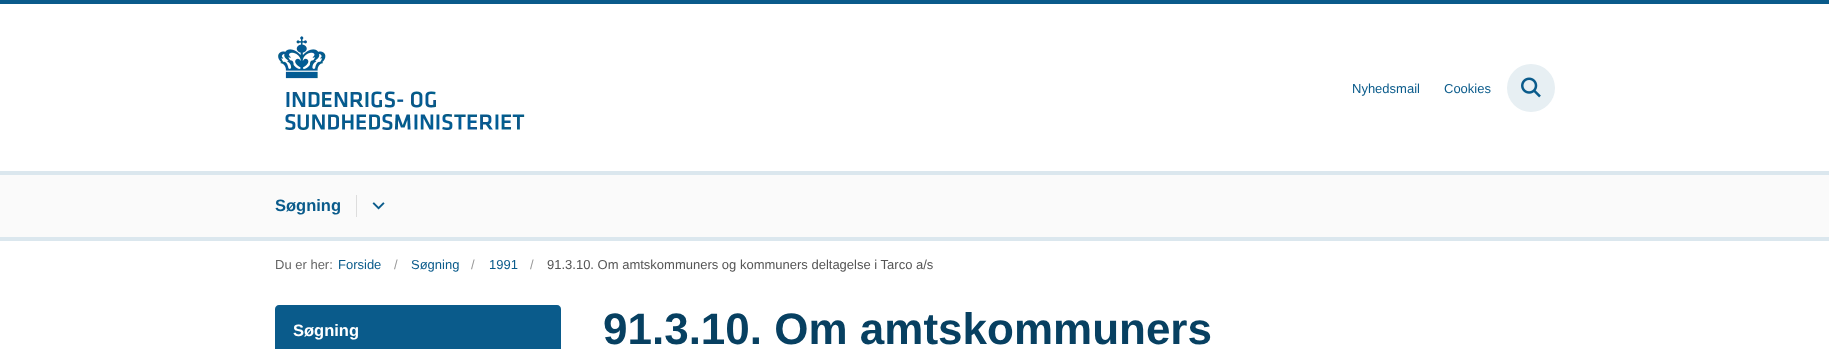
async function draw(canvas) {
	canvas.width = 1829;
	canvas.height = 349;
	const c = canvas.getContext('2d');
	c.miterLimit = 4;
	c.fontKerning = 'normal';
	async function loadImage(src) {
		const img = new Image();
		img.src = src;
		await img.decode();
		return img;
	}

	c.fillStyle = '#fff';
	c.fillRect(0, 0, 1829, 349);
	c.fillStyle = '#0a5b8b';
	c.fillRect(0, 0, 1829, 4);
	c.drawImage(await loadImage('img1.png'), 278, 36, 247, 94);
	c.font = '13px Liberation Sans';
	c.fillText('Nyhedsmail', 1352, 93);
	c.fillText('Cookies', 1444, 93);
	c.fillStyle = '#e7eff3';
	c.beginPath();
	c.arc(1531, 88, 24, 0, 2 * Math.PI);
	c.fill();
	c.drawImage(await loadImage('img2.png'), 1521, 77, 20, 21);
	c.fillStyle = '#fafafa';
	c.fillRect(0, 175, 1829, 62);
	c.fillStyle = '#dbe7ee';
	c.fillRect(0, 171, 1829, 4);
	c.font = 'bold 16.5px Liberation Sans';
	c.fillStyle = '#0a5b8b';
	c.fillText('Søgning', 275, 211);
	c.fillStyle = '#ddd';
	c.fillRect(356, 195, 1, 22);
	c.drawImage(await loadImage('img3.png'), 372, 202, 13, 8);
	c.fillStyle = '#dbe7ee';
	c.fillRect(0, 237, 1829, 4);
	c.font = '13px Liberation Sans';
	c.fillStyle = '#666';
	c.fillText('Du er her:', 275, 269);
	c.fillStyle = '#0a5b8b';
	c.fillText('Forside', 338, 269);
	c.fillStyle = '#999';
	c.fillText('/', 394, 269);
	c.fillStyle = '#0a5b8b';
	c.fillText('Søgning', 411, 269);
	c.fillStyle = '#999';
	c.fillText('/', 471, 269);
	c.fillStyle = '#0a5b8b';
	c.fillText('1991', 489, 269);
	c.fillStyle = '#999';
	c.fillText('/', 530, 269);
	c.fillStyle = '#555';
	c.fillText('91.3.10. Om amtskommuners og kommuners deltagelse i Tarco a/s', 547, 269);
	c.beginPath();
	c.roundRect(276.5, 306.5, 283, 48, 2.5);
	c.strokeStyle = '#dbe7ee';
	c.lineWidth = 3;
	c.stroke();
	c.fillStyle = '#0a5b8b';
	c.beginPath();
	c.moveTo(279, 305);
	c.lineTo(557, 305);
	c.bezierCurveTo(559, 305, 561, 307, 561, 309);
	c.lineTo(561, 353);
	c.lineTo(275, 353);
	c.lineTo(275, 309);
	c.bezierCurveTo(275, 307, 277, 305, 279, 305);
	c.closePath();
	c.fill();
	c.font = 'bold 16.5px Liberation Sans';
	c.fillStyle = '#fff';
	c.fillText('Søgning', 293, 336);
	c.font = 'bold 44px Liberation Sans';
	c.fillStyle = '#074061';
	c.fillText('91.3.10. Om amtskommuners', 603, 344);
}

draw(document.querySelector('canvas'));
